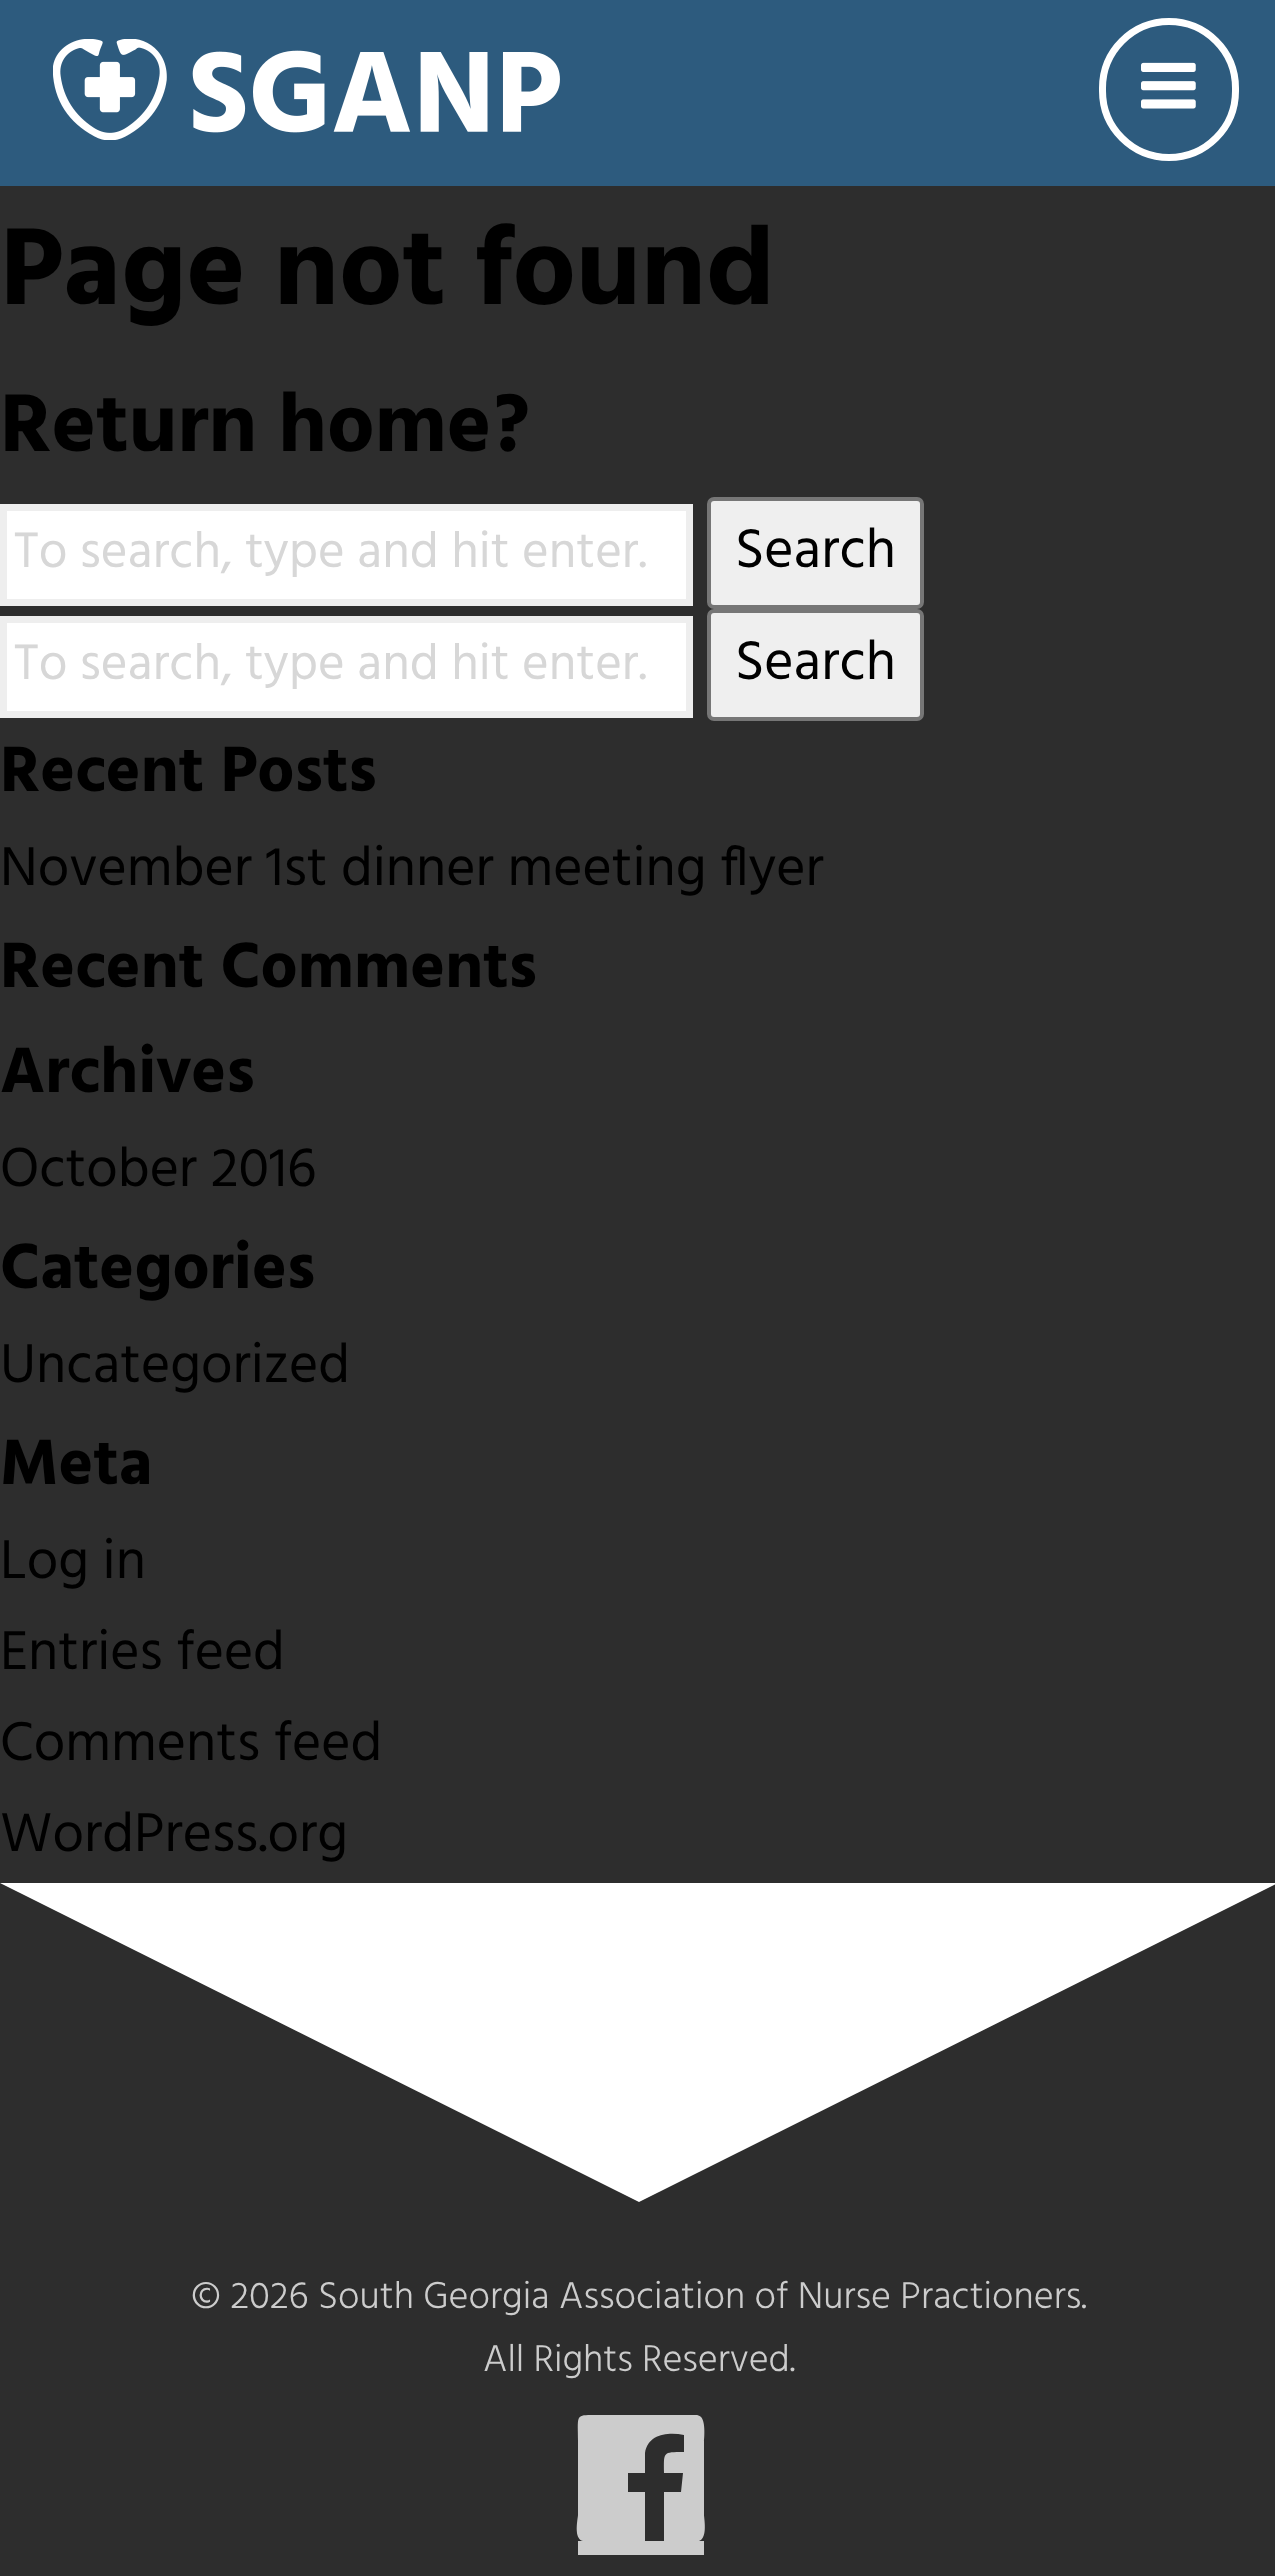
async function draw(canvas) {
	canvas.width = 1275;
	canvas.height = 2576;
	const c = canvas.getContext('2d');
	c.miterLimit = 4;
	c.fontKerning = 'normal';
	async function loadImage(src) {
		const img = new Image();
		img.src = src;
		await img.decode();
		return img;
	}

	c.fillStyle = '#2d2d2d';
	c.fillRect(0, 0, 1275, 2576);
	c.fillStyle = '#2d5b7e';
	c.fillRect(0, 0, 1275, 186);
	c.drawImage(await loadImage('img1.png'), 53, 39, 507, 101);
	c.beginPath();
	c.roundRect(1102.5, 21.5, 133, 136, 66.5);
	c.strokeStyle = '#fff';
	c.lineWidth = 7;
	c.stroke();
	c.drawImage(await loadImage('img2.png'), 1141, 62, 55, 47);
	c.font = 'bold 112px Hind';
	c.fillStyle = '#000';
	c.fillText('Page not found', 0, 304);
	c.font = 'bold 84px Hind';
	c.fillText('Return home?', 0, 451);
	c.fillStyle = '#fff';
	c.beginPath();
	c.rect(3.5, 507.5, 686, 95);
	c.fill();
	c.strokeStyle = '#eee';
	c.stroke();
	c.font = '51.1px Hind';
	c.fillStyle = '#d7d7d7';
	c.fillText('To search, type and hit enter.', 14, 567);
	c.fillStyle = '#efefef';
	c.beginPath();
	c.roundRect(709, 499, 213, 108, 5);
	c.fill();
	c.strokeStyle = '#767676';
	c.lineWidth = 4;
	c.stroke();
	c.font = '56px Hind';
	c.fillStyle = '#000';
	c.fillText('Search', 735, 567);
	c.fillStyle = '#fff';
	c.beginPath();
	c.rect(3.5, 619.5, 686, 95);
	c.fill();
	c.strokeStyle = '#eee';
	c.lineWidth = 7;
	c.stroke();
	c.font = '51.1px Hind';
	c.fillStyle = '#d7d7d7';
	c.fillText('To search, type and hit enter.', 14, 679);
	c.fillStyle = '#efefef';
	c.beginPath();
	c.roundRect(709, 611, 213, 108, 5);
	c.fill();
	c.strokeStyle = '#767676';
	c.lineWidth = 4;
	c.stroke();
	c.font = '56px Hind';
	c.fillStyle = '#000';
	c.fillText('Search', 735, 679);
	c.font = 'bold 65.5px Hind';
	c.fillText('Recent Posts', 0, 791);
	c.font = '56px Hind';
	c.fillText('November 1st dinner meeting flyer', 0, 885);
	c.font = 'bold 65.5px Hind';
	c.fillText('Recent Comments', 0, 987);
	c.fillText('Archives', 0, 1092);
	c.font = '56px Hind';
	c.fillText('October 2016', 0, 1186);
	c.font = 'bold 65.5px Hind';
	c.fillText('Categories', 0, 1288);
	c.font = '56px Hind';
	c.fillText('Uncategorized', 0, 1382);
	c.font = 'bold 65.5px Hind';
	c.fillText('Meta', 0, 1484);
	c.font = '56px Hind';
	for (const [text, x, y] of [
		['Log in', 0, 1578],
		['Entries feed', 0, 1669],
		['Comments feed', 0, 1760],
		['WordPress.org', 0, 1851],
	]) {
		c.fillText(text, x, y);
	}
	c.fillStyle = '#fff';
	c.beginPath();
	c.moveTo(0, 1883);
	c.lineTo(639, 2202);
	c.lineTo(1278, 1883);
	c.fill();
	c.font = '300 38.3px Hind';
	c.fillStyle = '#ccc';
	c.fillText('© 2026 South Georgia Association of Nurse Practioners.', 191, 2308);
	c.fillText('All Rights Reserved.', 483, 2371);
	c.beginPath();
	c.moveTo(697, 2415);
	c.bezierCurveTo(698, 2415, 700, 2416, 701, 2417);
	c.bezierCurveTo(706, 2422, 704, 2440, 704, 2441);
	c.lineTo(704, 2515);
	c.bezierCurveTo(704, 2518, 708, 2538, 699, 2541);
	c.lineTo(664, 2541);
	c.lineTo(664, 2492);
	c.lineTo(681, 2492);
	c.lineTo(683, 2473);
	c.lineTo(664, 2473);
	c.bezierCurveTo(664, 2452, 662, 2452, 684, 2452);
	c.lineTo(684, 2435);
	c.bezierCurveTo(668, 2432, 648, 2434, 645, 2453);
	c.lineTo(645, 2473);
	c.lineTo(628, 2473);
	c.lineTo(628, 2492);
	c.lineTo(645, 2492);
	c.lineTo(645, 2541);
	c.lineTo(583, 2541);
	c.bezierCurveTo(573, 2539, 578, 2518, 578, 2515);
	c.lineTo(578, 2441);
	c.bezierCurveTo(578, 2412, 574, 2415, 603, 2415);
	c.closePath();
	c.fill();
	c.fillRect(578, 2541, 126, 14);
}

draw(document.querySelector('canvas'));
